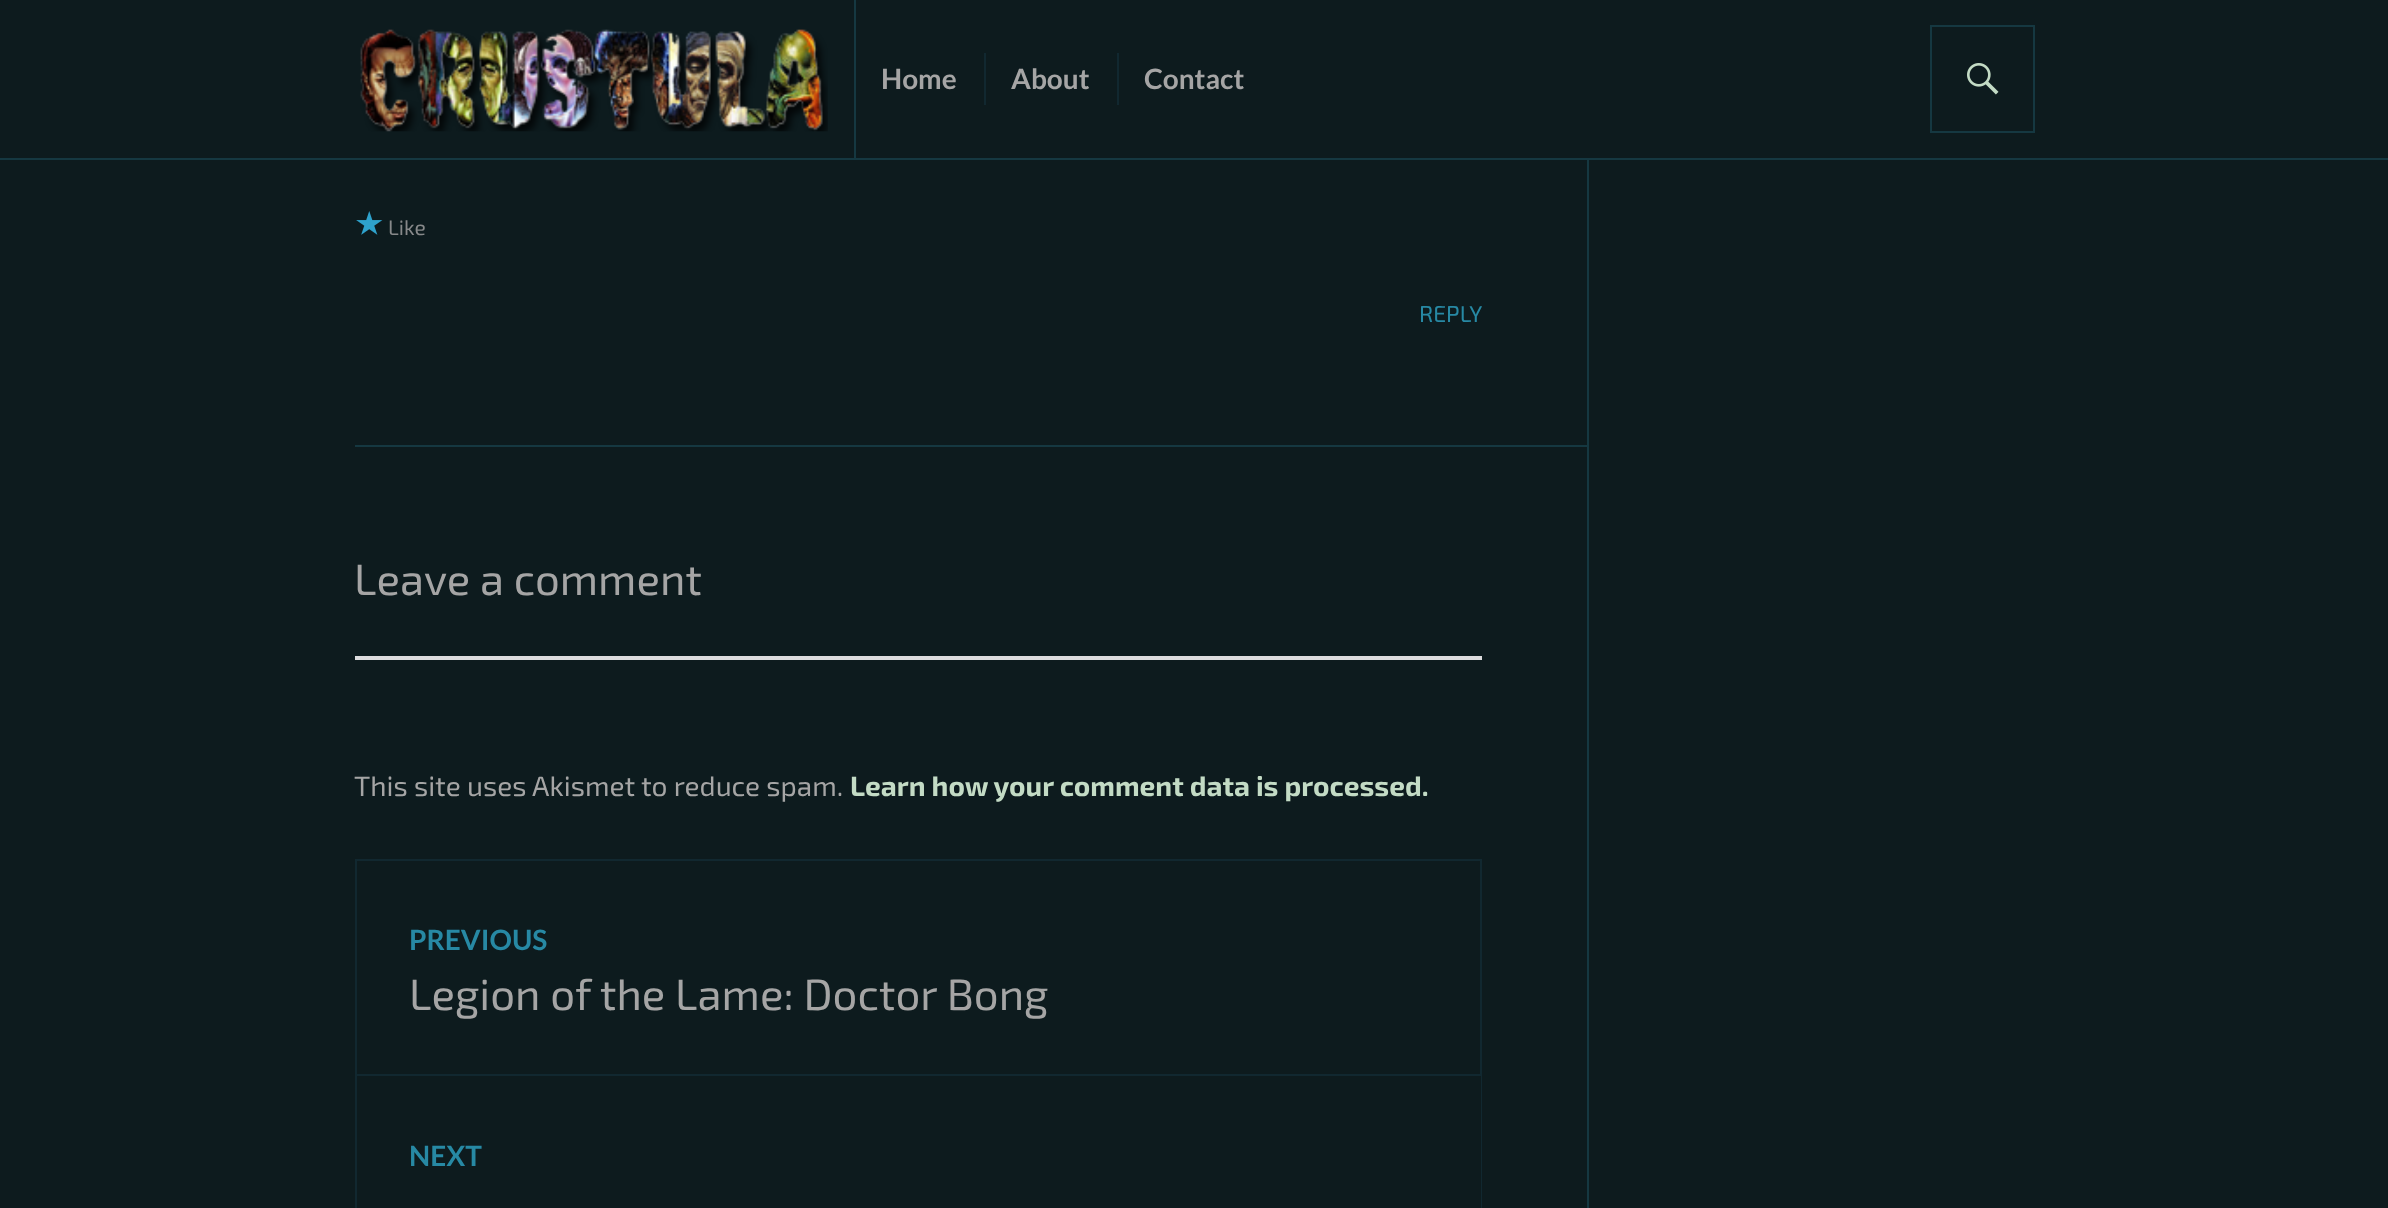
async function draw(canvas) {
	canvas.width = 2388;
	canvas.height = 1208;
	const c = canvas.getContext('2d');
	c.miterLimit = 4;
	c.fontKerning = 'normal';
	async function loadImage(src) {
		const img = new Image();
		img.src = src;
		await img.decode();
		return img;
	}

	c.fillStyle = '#0d1b1e';
	c.fillRect(0, 0, 2388, 1208);
	c.fillStyle = '#153841';
	c.fillRect(0, 158, 2388, 2);
	c.drawImage(await loadImage('img1.png'), 360, 29, 468, 103);
	c.fillRect(854, 0, 2, 158);
	c.font = 'bold 28px Lato';
	c.fillStyle = '#a5a5a5';
	c.fillText('Home', 881, 89);
	c.fillStyle = '#112830';
	c.fillRect(984, 53, 2, 52);
	c.fillStyle = '#a5a5a5';
	c.fillText('About', 1011, 89);
	c.fillStyle = '#112830';
	c.fillRect(1117, 53, 2, 52);
	c.fillStyle = '#a5a5a5';
	c.fillText('Contact', 1144, 89);
	c.strokeStyle = '#153841';
	c.lineWidth = 2;
	c.strokeRect(1931, 26, 103, 106);
	c.drawImage(await loadImage('img2.png'), 1967, 63, 32, 32);
	c.fillStyle = '#153841';
	c.fillRect(1587, 160, 2, 1048);
	c.fillRect(355, 445, 1232, 2);
	c.drawImage(await loadImage('img3.png'), 356, 211, 27, 24);
	c.font = '21px "Exo 2"';
	c.fillStyle = '#87898a';
	c.fillText('Like', 388, 235);
	c.font = '23px "Exo 2"';
	c.fillStyle = '#2789a4';
	c.fillText('REPLY', 1419, 322);
	c.font = '43.75px "Exo 2"';
	c.fillStyle = '#a5a5a5';
	c.fillText('Leave a comment', 354, 595);
	c.fillStyle = '#dcdcde';
	c.fillRect(355, 656, 1127, 4);
	c.font = '28px "Exo 2"';
	c.fillStyle = '#a5a5a5';
	c.fillText('This site uses Akismet to reduce spam.', 354, 796);
	c.font = 'bold 28px "Exo 2"';
	c.fillStyle = '#c3dbc5';
	c.fillText('Learn how your comment data is processed.', 850, 796);
	c.strokeStyle = '#112830';
	c.strokeRect(356, 860, 1125, 215);
	c.font = 'bold 28px Lato';
	c.fillStyle = '#2789a4';
	c.fillText('PREVIOUS', 409, 950);
	c.font = '43.75px "Exo 2"';
	c.fillStyle = '#a5a5a5';
	c.fillText('Legion of the Lame: Doctor Bong', 409, 1010);
	c.fillStyle = '#112830';
	c.fillRect(1481, 1076, 1, 132);
	c.fillRect(355, 1076, 2, 132);
	c.font = 'bold 28px Lato';
	c.fillStyle = '#2789a4';
	c.fillText('NEXT', 409, 1166);
}

draw(document.querySelector('canvas'));
